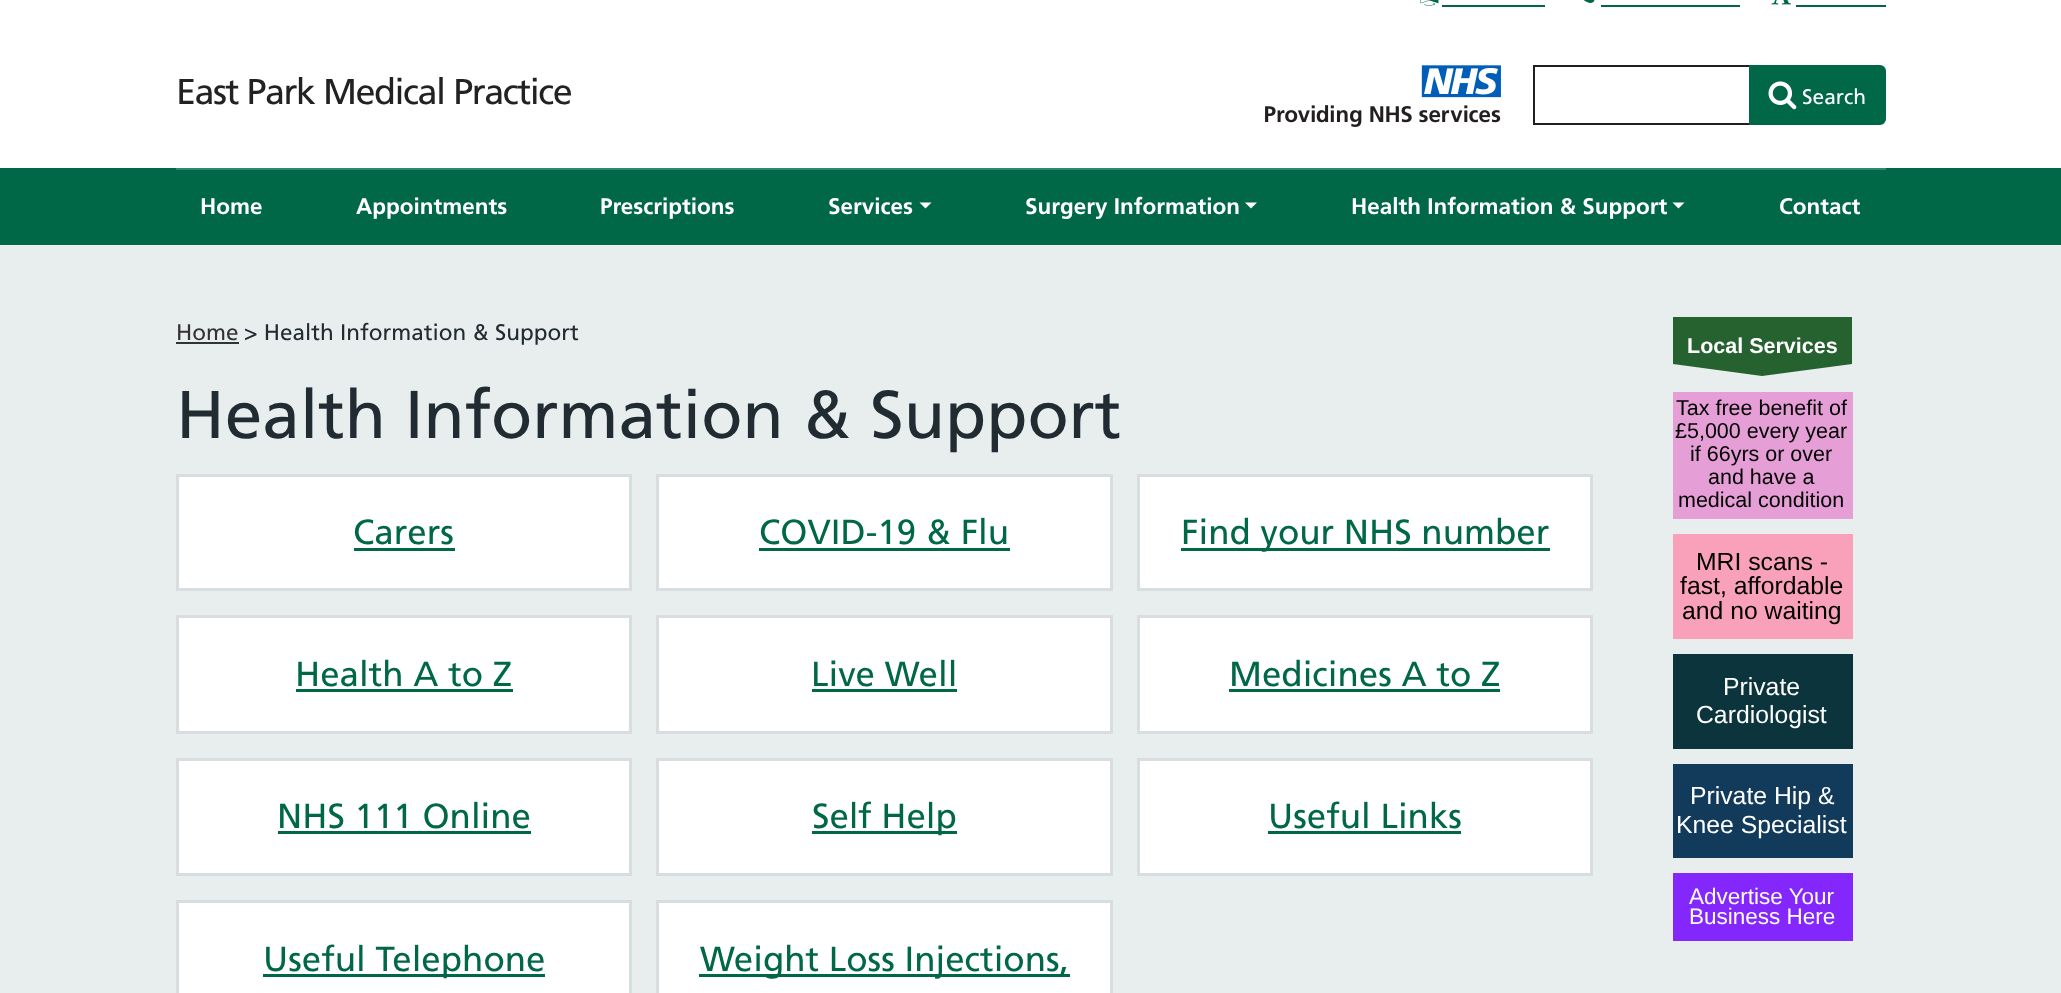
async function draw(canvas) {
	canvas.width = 2061;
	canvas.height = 993;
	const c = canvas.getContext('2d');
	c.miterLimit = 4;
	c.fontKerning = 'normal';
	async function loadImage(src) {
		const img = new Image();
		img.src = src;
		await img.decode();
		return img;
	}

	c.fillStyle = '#e8edee';
	c.fillRect(0, 0, 2061, 993);
	c.fillStyle = '#fff';
	c.fillRect(0, 0, 2061, 168);
	c.drawImage(await loadImage('img1.png'), 1420, 0, 19, 6);
	c.fillStyle = '#006747';
	c.fillRect(1442, 5, 103, 2);
	c.drawImage(await loadImage('img2.png'), 1583, 0, 12, 3);
	c.fillRect(1601, 5, 139, 2);
	c.drawImage(await loadImage('img3.png'), 1771, 0, 20, 5);
	c.fillRect(1796, 5, 90, 2);
	c.letterSpacing = '-1.5px';
	c.font = '36px Frutiger';
	c.fillStyle = '#222';
	c.fillText('East Park Medical Practice', 176, 104);
	c.drawImage(await loadImage('img4.png'), 1265, 65, 236, 62);
	c.strokeStyle = '#231f20';
	c.lineWidth = 2;
	c.strokeRect(1534, 66, 216, 58);
	c.fillStyle = '#006747';
	c.beginPath();
	c.roundRect(1750, 66, 135, 58, [0, 5, 5, 0]);
	c.fill();
	c.strokeStyle = '#006747';
	c.stroke();
	c.drawImage(await loadImage('img5.png'), 1768, 81, 29, 29);
	c.letterSpacing = '0px';
	c.font = '21px Frutiger';
	c.fillStyle = '#fff';
	c.fillText('Search', 1802, 104);
	c.fillStyle = '#006747';
	c.fillRect(0, 168, 2061, 77);
	c.fillStyle = '#33856c';
	c.fillRect(176, 168, 1710, 2);
	c.font = 'bold 22.5px Frutiger';
	c.fillStyle = '#fff';
	for (const [text, x, y] of [
		['Home', 200, 214],
		['Appointments', 356, 214],
		['Prescriptions', 600, 214],
		['Services', 828, 214],
	]) {
		c.fillText(text, x, y);
	}
	c.beginPath();
	c.moveTo(919.5, 202.5);
	c.lineTo(931.5, 202.5);
	c.lineTo(925.5, 208.5);
	c.closePath();
	c.fill();
	c.fillText('Surgery Information', 1025, 214);
	c.beginPath();
	c.moveTo(1245, 202.5);
	c.lineTo(1257, 202.5);
	c.lineTo(1251, 208.5);
	c.closePath();
	c.fill();
	c.fillText('Health Information & Support', 1351, 214);
	c.beginPath();
	c.moveTo(1672.5, 202.5);
	c.lineTo(1684.5, 202.5);
	c.lineTo(1678.5, 208.5);
	c.closePath();
	c.fill();
	c.fillText('Contact', 1779, 214);
	c.font = '22.5px Frutiger';
	c.fillStyle = '#333';
	c.fillText('Home', 176, 340);
	c.fillRect(176, 342, 63, 2);
	c.fillStyle = '#212b32';
	c.fillText('> Health Information & Support', 244, 340);
	c.font = '67.5px Frutiger';
	c.fillText('Health Information & Support', 176, 438);
	c.fillStyle = '#fff';
	c.beginPath();
	c.rect(177.5, 475.5, 453, 114);
	c.fill();
	c.strokeStyle = '#d8dde0';
	c.lineWidth = 3;
	c.stroke();
	c.font = '34.9px Frutiger';
	c.fillStyle = '#006747';
	c.fillText('Carers', 353, 544);
	c.fillRect(354, 548, 101, 3);
	c.fillStyle = '#fff';
	c.beginPath();
	c.rect(657.5, 475.5, 454, 114);
	c.fill();
	c.stroke();
	c.fillStyle = '#006747';
	c.fillText('COVID-19 & Flu', 759, 544);
	c.fillRect(759, 548, 251, 3);
	c.fillStyle = '#fff';
	c.beginPath();
	c.rect(1138.5, 475.5, 453, 114);
	c.fill();
	c.stroke();
	c.fillStyle = '#006747';
	c.fillRect(1181, 548, 369, 3);
	c.fillText('Find your NHS number', 1181, 544);
	c.fillStyle = '#fff';
	c.beginPath();
	c.rect(177.5, 616.5, 453, 116);
	c.fill();
	c.stroke();
	c.fillStyle = '#006747';
	c.fillText('Health A to Z', 295, 686);
	c.fillRect(296, 689, 217, 3);
	c.fillStyle = '#fff';
	c.beginPath();
	c.rect(657.5, 616.5, 454, 116);
	c.fill();
	c.stroke();
	c.fillStyle = '#006747';
	c.fillText('Live Well', 811, 686);
	c.fillRect(812, 689, 145, 3);
	c.fillStyle = '#fff';
	c.beginPath();
	c.rect(1138.5, 616.5, 453, 116);
	c.fill();
	c.stroke();
	c.fillStyle = '#006747';
	c.fillText('Medicines A to Z', 1229, 686);
	c.fillRect(1229, 689, 271, 3);
	c.fillStyle = '#fff';
	c.beginPath();
	c.rect(177.5, 759.5, 453, 115);
	c.fill();
	c.stroke();
	c.fillStyle = '#006747';
	c.fillText('NHS 111 Online', 277, 828);
	c.fillRect(278, 831, 253, 3);
	c.fillStyle = '#fff';
	c.beginPath();
	c.rect(657.5, 759.5, 454, 115);
	c.fill();
	c.stroke();
	c.fillStyle = '#006747';
	c.fillRect(812, 831, 145, 3);
	c.fillText('Self Help', 812, 828);
	c.fillStyle = '#fff';
	c.beginPath();
	c.rect(1138.5, 759.5, 453, 115);
	c.fill();
	c.stroke();
	c.fillStyle = '#006747';
	c.fillText('Useful Links', 1268, 828);
	c.fillRect(1268, 831, 193, 3);
	c.fillStyle = '#fff';
	c.beginPath();
	c.rect(177.5, 901.5, 453, 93);
	c.fill();
	c.stroke();
	c.fillStyle = '#006747';
	c.fillRect(263, 974, 282, 3);
	c.fillText('Useful Telephone', 263, 971);
	c.fillStyle = '#fff';
	c.beginPath();
	c.rect(657.5, 901.5, 454, 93);
	c.fill();
	c.stroke();
	c.fillStyle = '#006747';
	c.fillRect(699, 974, 371, 3);
	c.fillText('Weight Loss Injections,', 700, 971);
	c.fillStyle = '#256230';
	c.beginPath();
	c.moveTo(1673, 317);
	c.lineTo(1852, 317);
	c.lineTo(1852, 364);
	c.lineTo(1762, 376);
	c.lineTo(1673, 364);
	c.closePath();
	c.fill();
	c.font = 'bold 21.5px Liberation Sans';
	c.fillStyle = '#fff';
	c.fillText('Local Services', 1687, 353);
	c.fillStyle = '#e69ed7';
	c.fillRect(1673, 392, 180, 127);
	c.font = '21.5px Liberation Sans';
	c.fillStyle = '#000';
	for (const [text, x, y] of [
		['Tax free benefit of', 1676, 415],
		['£5,000 every year', 1675, 438],
		['if 66yrs or over', 1690, 461],
		['and have a', 1708, 484],
		['medical condition', 1678, 507],
	]) {
		c.fillText(text, x, y);
	}
	c.fillStyle = '#f9a1bb';
	c.fillRect(1673, 534, 180, 105);
	c.font = '24.75px Liberation Sans';
	c.fillStyle = '#000';
	for (const [text, x, y] of [
		['MRI scans -', 1696, 570],
		['fast, affordable', 1680, 594],
		['and no waiting', 1682, 619],
	]) {
		c.fillText(text, x, y);
	}
	c.fillStyle = '#0b343d';
	c.fillRect(1673, 654, 180, 95);
	c.fillStyle = '#fff';
	c.fillText('Private', 1723, 695);
	c.fillText('Cardiologist', 1696, 723);
	c.fillStyle = '#123b5b';
	c.fillRect(1673, 764, 180, 94);
	c.fillStyle = '#fff';
	c.fillText('Private Hip &', 1690, 804);
	c.fillText('Knee Specialist', 1676, 833);
	c.fillStyle = '#8327fc';
	c.fillRect(1673, 873, 180, 68);
	c.font = '22.5px Liberation Sans';
	c.fillStyle = '#fff';
	c.fillText('Advertise Your', 1689, 904);
	c.fillText('Business Here', 1689, 924);
}

draw(document.querySelector('canvas'));
